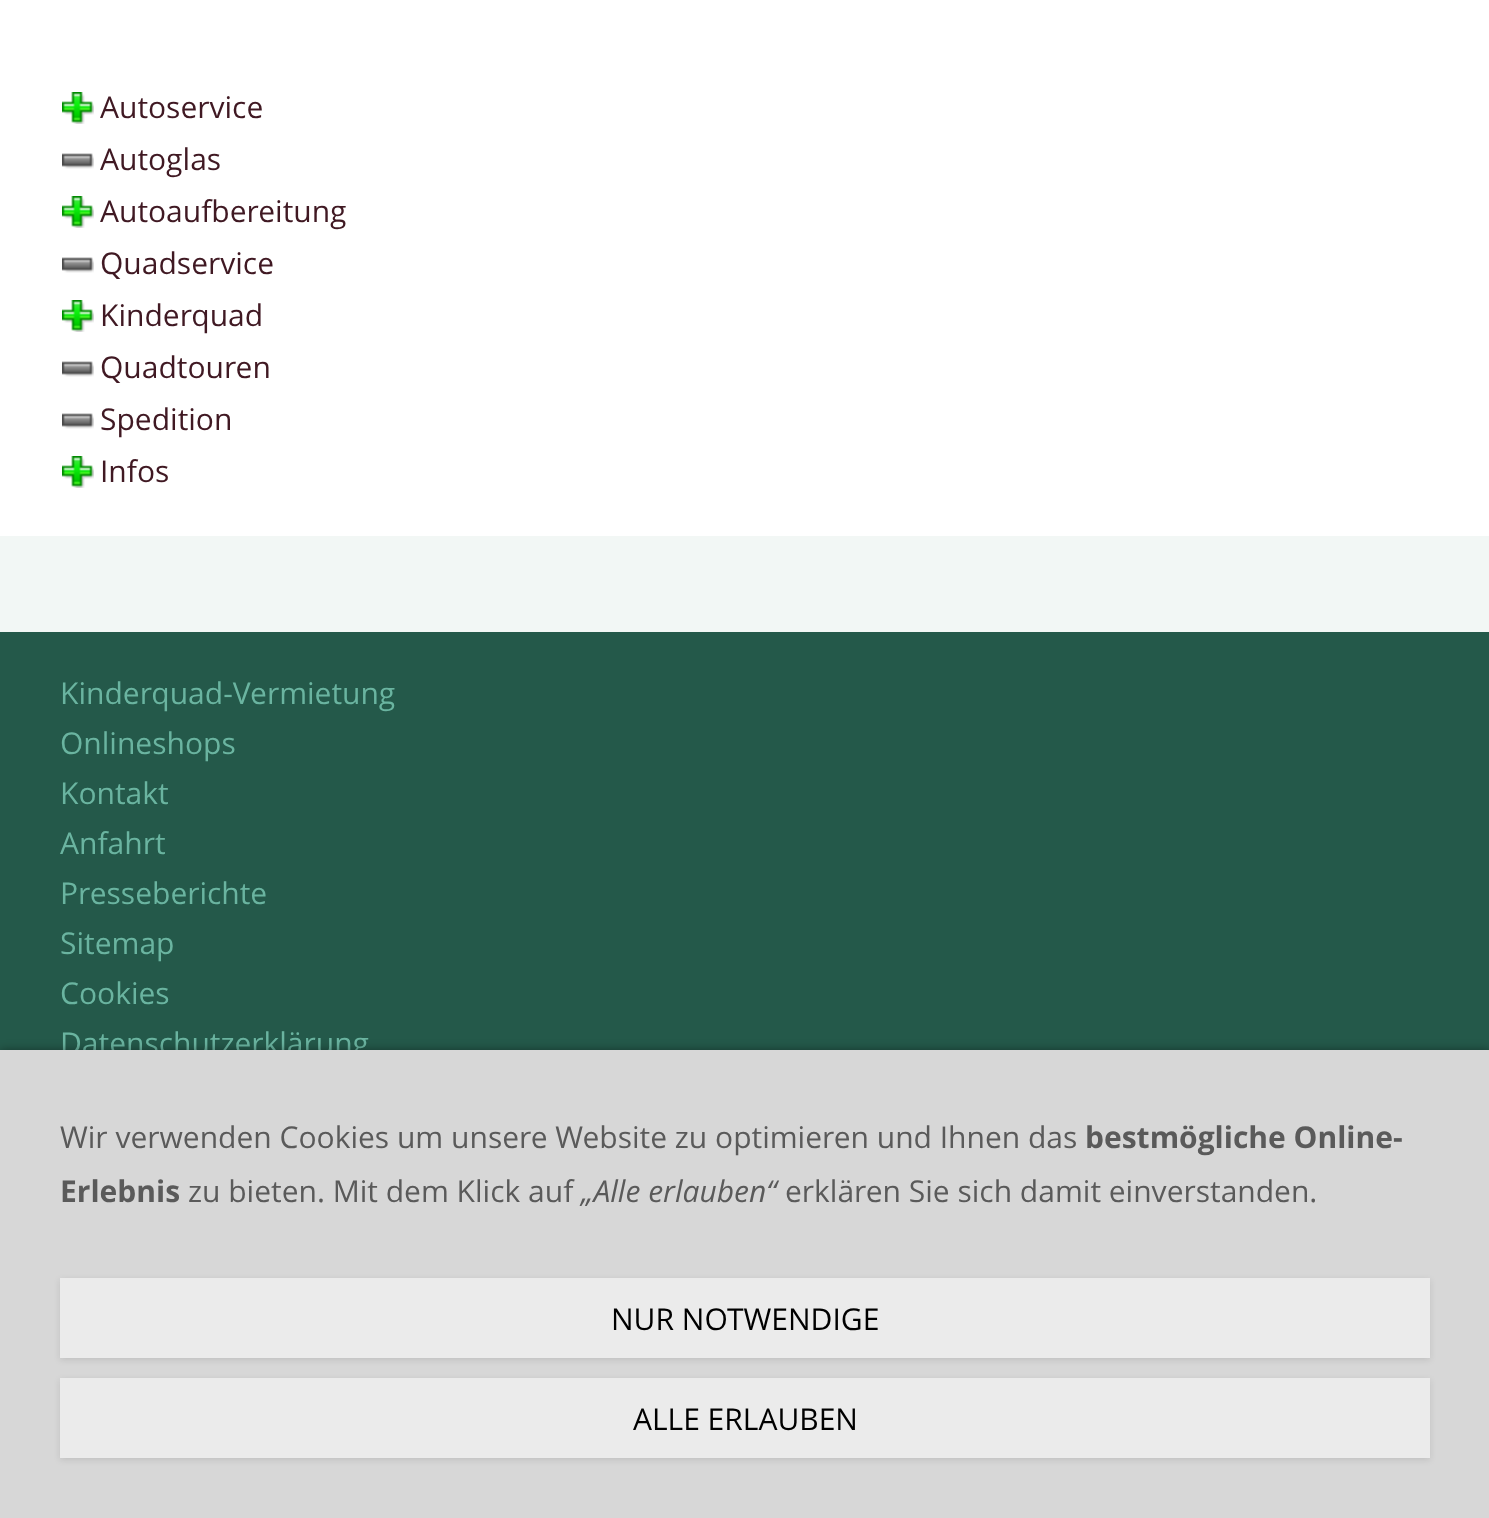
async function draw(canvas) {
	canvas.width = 1489;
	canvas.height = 1518;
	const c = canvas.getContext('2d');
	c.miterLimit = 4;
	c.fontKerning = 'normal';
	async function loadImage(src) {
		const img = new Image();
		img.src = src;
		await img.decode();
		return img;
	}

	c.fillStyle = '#f2f7f5';
	c.fillRect(0, 0, 1489, 1518);
	c.fillStyle = '#fff';
	c.fillRect(0, 0, 1489, 536);
	c.drawImage(await loadImage('img1.png'), 62, 92, 32, 32);
	c.font = '30px Open Sans';
	c.fillStyle = '#401923';
	c.fillText('Autoservice', 100, 118);
	c.drawImage(await loadImage('img2.png'), 62, 153, 32, 16);
	c.fillText('Autoglas', 100, 170);
	c.drawImage(await loadImage('img1.png'), 62, 196, 32, 32);
	c.fillText('Autoaufbereitung', 100, 222);
	c.drawImage(await loadImage('img2.png'), 62, 257, 32, 16);
	c.fillText('Quadservice', 100, 274);
	c.drawImage(await loadImage('img1.png'), 62, 300, 32, 32);
	c.fillText('Kinderquad', 100, 326);
	c.drawImage(await loadImage('img2.png'), 62, 361, 32, 16);
	c.fillText('Quadtouren', 100, 378);
	c.drawImage(await loadImage('img2.png'), 62, 413, 32, 16);
	c.fillText('Spedition', 100, 430);
	c.drawImage(await loadImage('img1.png'), 62, 456, 32, 32);
	c.fillText('Infos', 100, 482);
	c.fillStyle = '#24594a';
	c.fillRect(0, 632, 1489, 418);
	c.fillStyle = '#6ab4a0';
	for (const [text, x, y] of [
		['Kinderquad-Vermietung', 60, 704],
		['Onlineshops', 60, 754],
		['Kontakt', 60, 804],
		['Anfahrt', 60, 854],
		['Presseberichte', 60, 904],
		['Sitemap', 60, 954],
		['Cookies', 60, 1004],
		['Datenschutzerklärung', 60, 1054],
	]) {
		c.fillText(text, x, y);
	}
	c.fillStyle = '#00000066';
	c.filter = 'blur(5px)';
	c.beginPath();
	c.rect(0, 1050, 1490, 468);
	c.fill();
	c.filter = 'none';
	c.fillStyle = '#d7d7d7';
	c.fillRect(0, 1050, 1489, 468);
	c.fillStyle = '#5a5a5a';
	c.fillText('Wir verwenden Cookies um unsere Website zu optimieren und Ihnen das', 60, 1148);
	c.font = 'bold 30px Open Sans';
	c.fillText('bestmögliche Online-', 1085, 1148);
	c.fillText('Erlebnis', 60, 1202);
	c.font = '30px Open Sans';
	c.fillText('zu bieten. Mit dem Klick auf', 188, 1202);
	c.font = 'italic 30px Open Sans';
	c.fillText('„Alle erlauben“', 581, 1202);
	c.font = '30px Open Sans';
	c.fillText('erklären Sie sich damit einverstanden.', 785, 1202);
	c.fillStyle = '#0000001a';
	c.filter = 'blur(3px)';
	c.beginPath();
	c.rect(60, 1280, 1370, 80);
	c.fill();
	c.filter = 'none';
	c.fillStyle = '#ebebeb';
	c.fillRect(60, 1278, 1370, 80);
	c.fillStyle = '#000';
	c.fillText('NUR NOTWENDIGE', 611, 1330);
	c.fillStyle = '#0000001a';
	c.filter = 'blur(3px)';
	c.beginPath();
	c.rect(60, 1380, 1370, 80);
	c.fill();
	c.filter = 'none';
	c.fillStyle = '#ebebeb';
	c.fillRect(60, 1378, 1370, 80);
	c.fillStyle = '#000';
	c.fillText('ALLE ERLAUBEN', 633, 1430);
}

draw(document.querySelector('canvas'));
